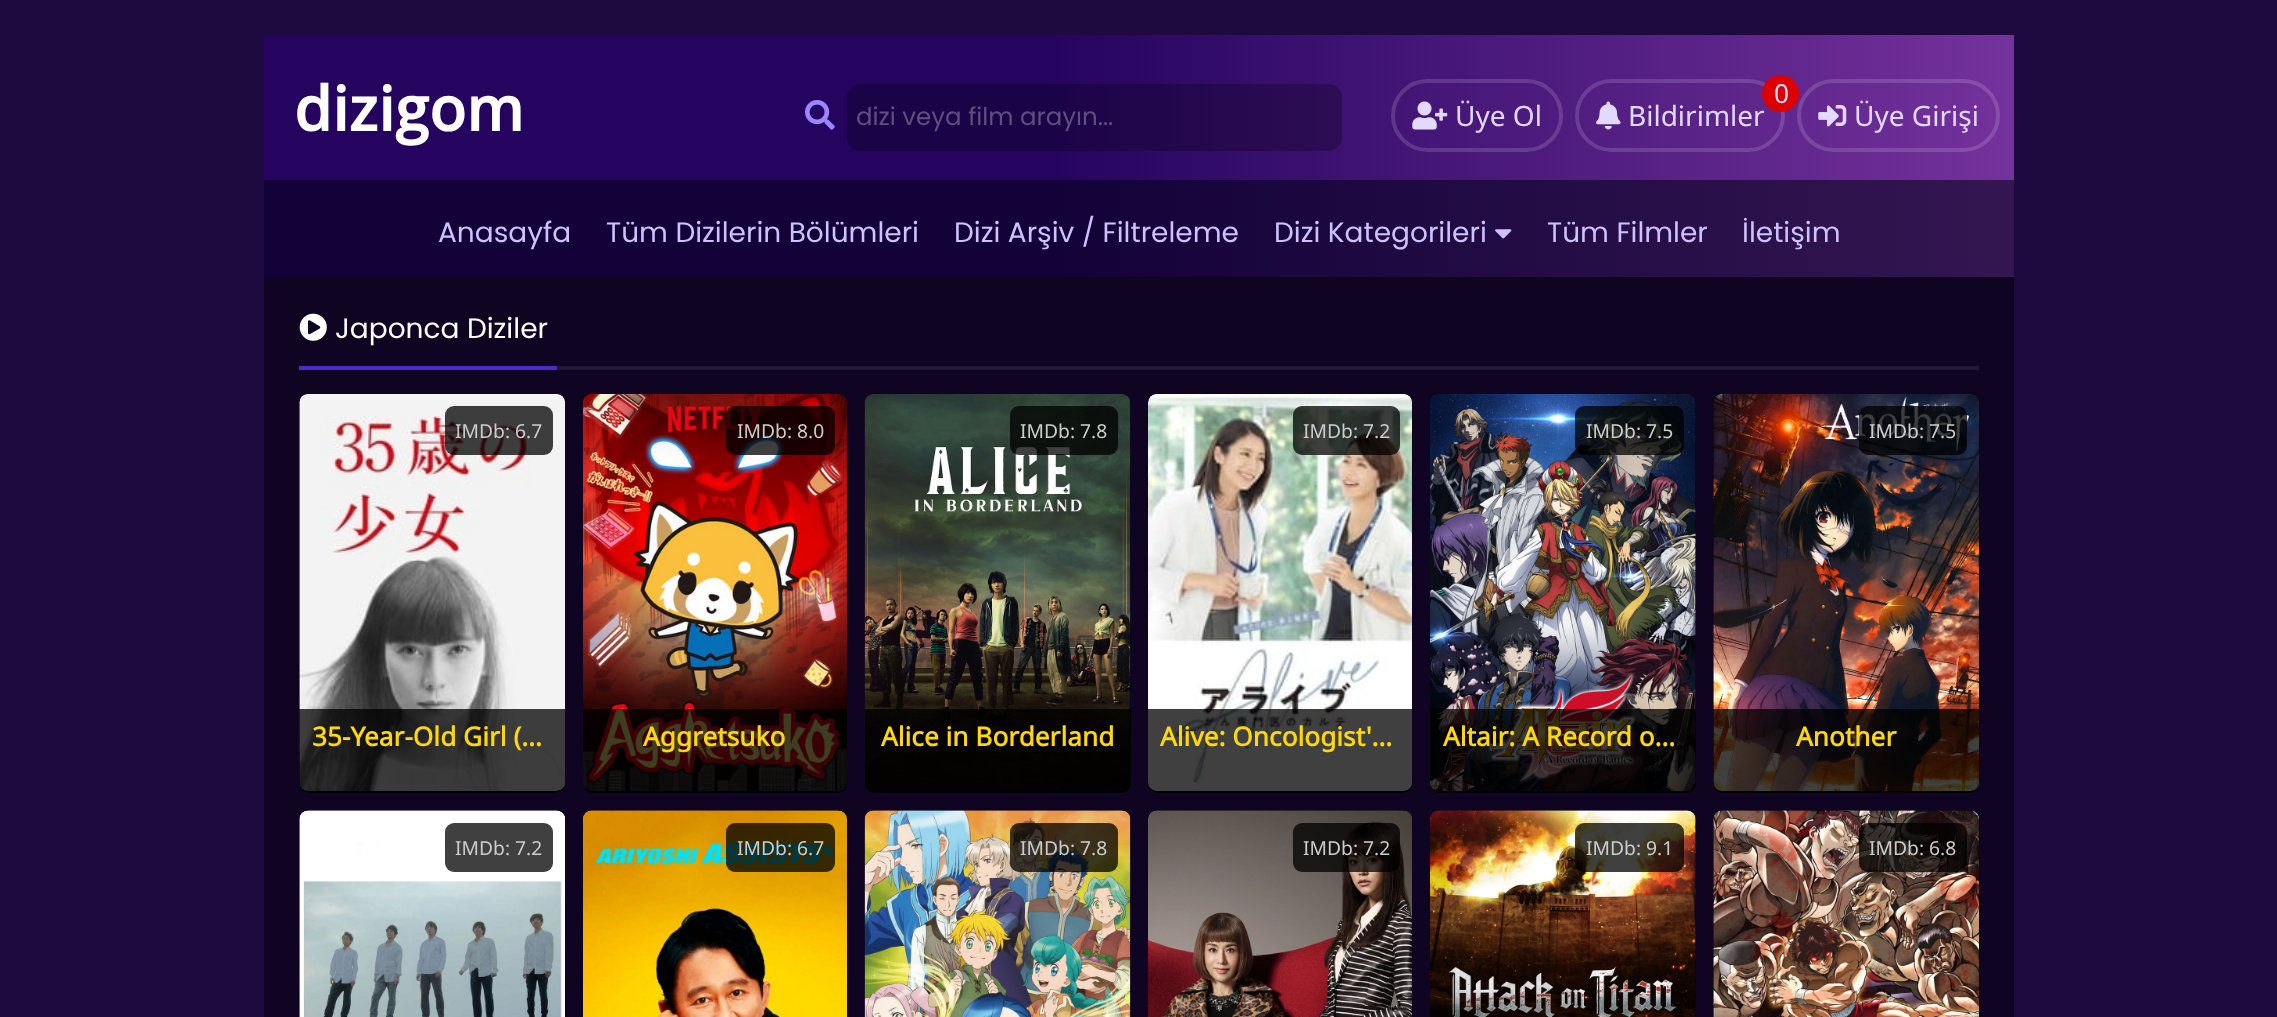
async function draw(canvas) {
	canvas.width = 2277;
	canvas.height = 1017;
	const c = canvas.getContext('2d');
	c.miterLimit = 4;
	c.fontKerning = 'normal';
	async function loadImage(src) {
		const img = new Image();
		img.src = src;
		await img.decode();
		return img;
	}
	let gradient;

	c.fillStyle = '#1e0a3e';
	c.fillRect(0, 0, 2277, 1017);
	c.fillStyle = '#0f0522';
	c.fillRect(264, 277, 1750, 740);
	gradient = c.createLinearGradient(264, 156, 2014, 156);
	gradient.addColorStop(0.45, '#25045f');
	gradient.addColorStop(1, '#74329c');
	c.fillStyle = gradient;
	c.fillRect(264, 35, 1750, 145);
	gradient = c.createLinearGradient(264, 156, 2014, 156);
	gradient.addColorStop(0.45, '#120237');
	gradient.addColorStop(1, '#341651');
	c.fillStyle = gradient;
	c.fillRect(264, 180, 1750, 97);
	c.letterSpacing = '0.5px';
	c.font = 'bold 61px Open Sans';
	c.fillStyle = '#fff';
	c.fillText('dizigom', 294, 131);
	c.beginPath();
	c.roundRect(1393, 81, 168, 69, 34.5);
	c.strokeStyle = '#ffffff26';
	c.lineWidth = 4;
	c.stroke();
	c.drawImage(await loadImage('img1.png'), 1412, 101, 36, 29);
	c.letterSpacing = '0px';
	c.font = '28px Noto Sans';
	c.fillStyle = '#e2d9ff';
	c.fillText('Üye Ol', 1455, 126);
	c.beginPath();
	c.roundRect(1577, 81, 206, 69, 34.5);
	c.stroke();
	c.drawImage(await loadImage('img2.png'), 1596, 101, 25, 29);
	c.fillText('Bildirimler', 1628, 126);
	c.beginPath();
	c.roundRect(1799, 81, 199, 69, 34.5);
	c.stroke();
	c.fillStyle = '#d00';
	c.beginPath();
	c.arc(1780.5, 93.5, 18.5, 0, 2 * Math.PI);
	c.fill();
	c.font = '26.25px Noto Sans';
	c.fillStyle = '#e2d9ff';
	c.fillText('0', 1774, 103);
	c.drawImage(await loadImage('img3.png'), 1818, 105, 29, 22);
	c.font = '28px Noto Sans';
	c.fillText('Üye Girişi', 1854, 126);
	c.drawImage(await loadImage('img4.png'), 805, 100, 30, 30);
	c.fillStyle = '#00000040';
	c.beginPath();
	c.roundRect(847, 84, 495, 67, 14);
	c.fill();
	c.font = '24.5px Poppins';
	c.fillStyle = '#604f7f';
	c.fillText('dizi veya film arayın...', 856, 125);
	c.font = '28px Poppins';
	c.fillStyle = '#cdc2ff';
	for (const [text, x, y] of [
		['Anasayfa', 438, 242],
		['Tüm Dizilerin Bölümleri', 606, 242],
		['Dizi Arşiv / Filtreleme', 954, 242],
		['Dizi Kategorileri', 1274, 242],
	]) {
		c.fillText(text, x, y);
	}
	c.drawImage(await loadImage('img5.png'), 1495, 229, 17, 10);
	c.fillText('Tüm Filmler', 1547, 242);
	c.fillText('İletişim', 1742, 242);
	c.fillStyle = '#221838';
	c.fillRect(557, 366, 1422, 4);
	c.fillStyle = '#5229cc';
	c.fillRect(299, 366, 258, 4);
	c.drawImage(await loadImage('img6.png'), 299, 313, 28, 28);
	c.fillStyle = '#fff';
	c.fillText('Japonca Diziler', 335, 338);
	c.fillStyle = '#05011a94';
	c.beginPath();
	c.roundRect(299, 394, 266, 397, 9);
	c.fill();
	c.drawImage(await loadImage('img7.png'), 299, 394, 266, 397);
	c.fillStyle = '#000000bf';
	c.beginPath();
	c.roundRect(445, 406, 108, 49, 9);
	c.fill();
	c.font = '19.25px Noto Sans';
	c.fillStyle = '#ccc';
	c.fillText('IMDb: 6.7', 455, 438);
	c.fillStyle = '#000000bf';
	c.beginPath();
	c.roundRect(299, 709, 266, 84, [0, 0, 9, 9]);
	c.fill();
	c.font = 'bold 26.25px Noto Sans';
	c.fillStyle = '#ffd70d';
	c.fillText('35-Year-Old Girl (…', 312, 746);
	c.fillStyle = '#09031d';
	c.beginPath();
	c.roundRect(583, 394, 264, 397, 9);
	c.fill();
	c.drawImage(await loadImage('img8.png'), 583, 394, 264, 397);
	c.fillStyle = '#000000bf';
	c.beginPath();
	c.roundRect(726, 406, 109, 49, 9);
	c.fill();
	c.font = '19.25px Noto Sans';
	c.fillStyle = '#ccc';
	c.fillText('IMDb: 8.0', 737, 438);
	c.fillStyle = '#000000bf';
	c.beginPath();
	c.roundRect(583, 709, 264, 84, [0, 0, 9, 9]);
	c.fill();
	c.font = 'bold 26.25px Noto Sans';
	c.fillStyle = '#ffd70d';
	c.fillText('Aggretsuko', 643, 746);
	c.fillStyle = '#05011a94';
	c.beginPath();
	c.roundRect(865, 394, 266, 397, 9);
	c.fill();
	c.drawImage(await loadImage('img9.png'), 864, 394, 267, 397);
	c.fillStyle = '#000000bf';
	c.beginPath();
	c.roundRect(1010, 406, 108, 49, 9);
	c.fill();
	c.font = '19.25px Noto Sans';
	c.fillStyle = '#ccc';
	c.fillText('IMDb: 7.8', 1020, 438);
	c.fillStyle = '#000000bf';
	c.beginPath();
	c.roundRect(865, 709, 266, 84, [0, 0, 9, 9]);
	c.fill();
	c.font = 'bold 26.25px Noto Sans';
	c.fillStyle = '#ffd70d';
	c.fillText('Alice in Borderland', 881, 746);
	c.fillStyle = '#09031d';
	c.beginPath();
	c.roundRect(1148, 394, 264, 397, 9);
	c.fill();
	c.drawImage(await loadImage('img10.png'), 1148, 394, 264, 397);
	c.fillStyle = '#000000bf';
	c.beginPath();
	c.roundRect(1293, 406, 107, 49, 9);
	c.fill();
	c.font = '19.25px Noto Sans';
	c.fillStyle = '#ccc';
	c.fillText('IMDb: 7.2', 1303, 438);
	c.fillStyle = '#000000bf';
	c.beginPath();
	c.roundRect(1148, 709, 264, 84, [0, 0, 9, 9]);
	c.fill();
	c.font = 'bold 26.25px Noto Sans';
	c.fillStyle = '#ffd70d';
	c.fillText('Alive: Oncologist\'…', 1160, 746);
	c.fillStyle = '#05011a94';
	c.beginPath();
	c.roundRect(1430, 394, 266, 397, 9);
	c.fill();
	c.drawImage(await loadImage('img11.png'), 1430, 394, 266, 397);
	c.fillStyle = '#000000bf';
	c.beginPath();
	c.roundRect(1575, 406, 109, 49, 9);
	c.fill();
	c.font = '19.25px Noto Sans';
	c.fillStyle = '#ccc';
	c.fillText('IMDb: 7.5', 1586, 438);
	c.fillStyle = '#000000bf';
	c.beginPath();
	c.roundRect(1430, 709, 266, 84, [0, 0, 9, 9]);
	c.fill();
	c.font = 'bold 26.25px Noto Sans';
	c.fillStyle = '#ffd70d';
	c.fillText('Altair: A Record o…', 1443, 746);
	c.fillStyle = '#05011a94';
	c.beginPath();
	c.roundRect(1713, 394, 266, 397, 9);
	c.fill();
	c.drawImage(await loadImage('img12.png'), 1713, 394, 266, 397);
	c.fillStyle = '#000000bf';
	c.beginPath();
	c.roundRect(1859, 406, 108, 49, 9);
	c.fill();
	c.font = '19.25px Noto Sans';
	c.fillStyle = '#ccc';
	c.fillText('IMDb: 7.5', 1869, 438);
	c.fillStyle = '#000000bf';
	c.beginPath();
	c.roundRect(1713, 709, 266, 84, [0, 0, 9, 9]);
	c.fill();
	c.font = 'bold 26.25px Noto Sans';
	c.fillStyle = '#ffd70d';
	c.fillText('Another', 1796, 746);
	c.fillStyle = '#09031d';
	c.beginPath();
	c.roundRect(299, 810, 266, 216, 9);
	c.fill();
	c.drawImage(await loadImage('img13.png'), 299, 810, 266, 207);
	c.fillStyle = '#000000bf';
	c.beginPath();
	c.roundRect(445, 823, 108, 49, 9);
	c.fill();
	c.font = '19.25px Noto Sans';
	c.fillStyle = '#ccc';
	c.fillText('IMDb: 7.2', 455, 855);
	c.fillStyle = '#09031d';
	c.beginPath();
	c.roundRect(583, 810, 264, 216, 9);
	c.fill();
	c.drawImage(await loadImage('img14.png'), 583, 810, 264, 207);
	c.fillStyle = '#000000bf';
	c.beginPath();
	c.roundRect(726, 823, 109, 49, 9);
	c.fill();
	c.fillStyle = '#ccc';
	c.fillText('IMDb: 6.7', 737, 855);
	c.fillStyle = '#05011a94';
	c.beginPath();
	c.roundRect(865, 810, 266, 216, 9);
	c.fill();
	c.drawImage(await loadImage('img15.png'), 864, 810, 267, 207);
	c.fillStyle = '#000000bf';
	c.beginPath();
	c.roundRect(1010, 823, 108, 49, 9);
	c.fill();
	c.fillStyle = '#ccc';
	c.fillText('IMDb: 7.8', 1020, 855);
	c.fillStyle = '#09031d';
	c.beginPath();
	c.roundRect(1148, 810, 264, 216, 9);
	c.fill();
	c.drawImage(await loadImage('img16.png'), 1148, 810, 264, 207);
	c.fillStyle = '#000000bf';
	c.beginPath();
	c.roundRect(1293, 823, 107, 49, 9);
	c.fill();
	c.fillStyle = '#ccc';
	c.fillText('IMDb: 7.2', 1303, 855);
	c.fillStyle = '#09031d';
	c.beginPath();
	c.roundRect(1430, 810, 266, 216, 9);
	c.fill();
	c.drawImage(await loadImage('img17.png'), 1430, 810, 266, 207);
	c.fillStyle = '#000000bf';
	c.beginPath();
	c.roundRect(1575, 823, 109, 49, 9);
	c.fill();
	c.fillStyle = '#ccc';
	c.fillText('IMDb: 9.1', 1586, 855);
	c.fillStyle = '#09031d';
	c.beginPath();
	c.roundRect(1713, 810, 266, 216, 9);
	c.fill();
	c.drawImage(await loadImage('img18.png'), 1713, 810, 266, 207);
	c.fillStyle = '#000000bf';
	c.beginPath();
	c.roundRect(1859, 823, 108, 49, 9);
	c.fill();
	c.fillStyle = '#ccc';
	c.fillText('IMDb: 6.8', 1869, 855);
}

draw(document.querySelector('canvas'));
